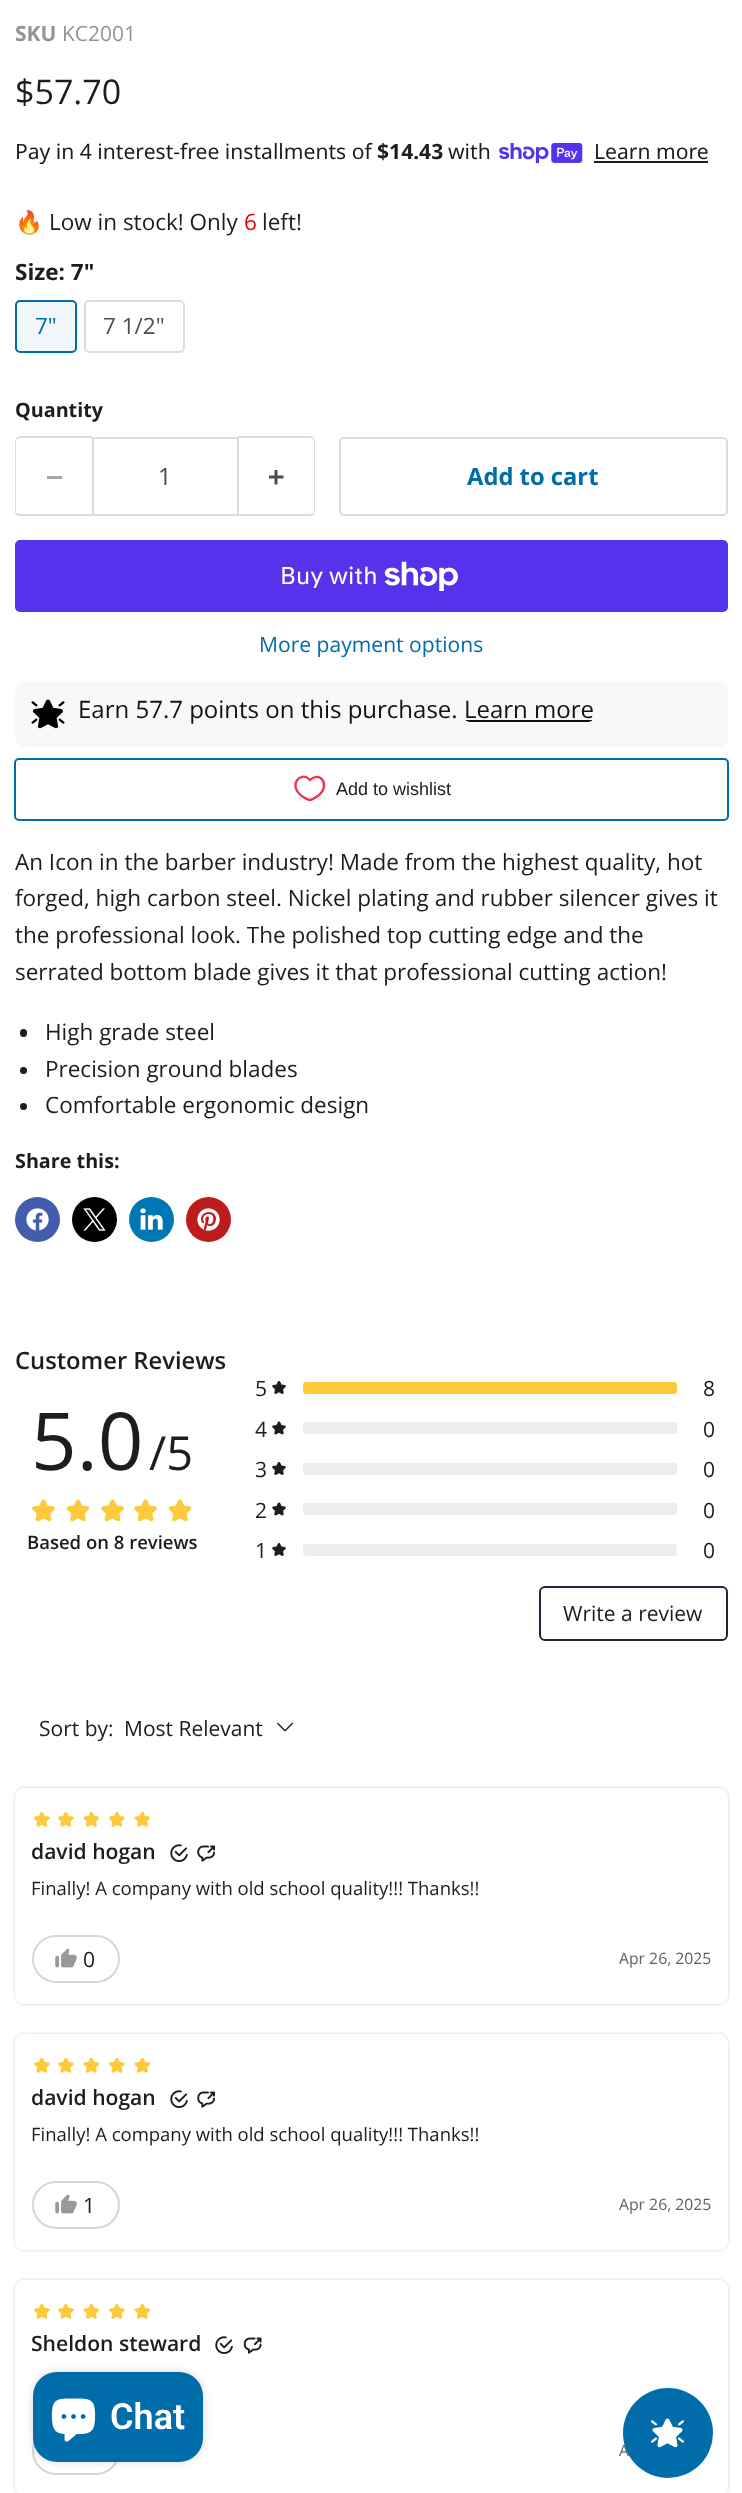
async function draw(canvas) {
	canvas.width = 742;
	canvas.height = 2493;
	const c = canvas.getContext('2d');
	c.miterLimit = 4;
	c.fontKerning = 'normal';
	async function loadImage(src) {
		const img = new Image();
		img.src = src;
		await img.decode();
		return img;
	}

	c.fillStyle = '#fff';
	c.fillRect(0, 0, 742, 2493);
	c.font = 'bold 21px Open Sans';
	c.fillStyle = '#949494';
	c.fillText('SKU', 15, 41);
	c.font = '21px Open Sans';
	c.fillText('KC2001', 62, 41);
	c.font = '34px Open Sans';
	c.fillStyle = '#1d1d1d';
	c.fillText('$57.70', 15, 104);
	c.font = '21.1px Noto Sans';
	c.fillText('Pay in 4 interest-free installments of', 15, 159);
	c.font = 'bold 21.1px Noto Sans';
	c.fillText('$14.43', 377, 159);
	c.font = '21.1px Noto Sans';
	c.fillText('with', 448, 159);
	c.drawImage(await loadImage('img1.png'), 499, 143, 84, 21);
	c.fillText('Learn more', 594, 159);
	c.fillRect(594, 161, 114, 2);
	c.font = '22.5px Noto Color Emoji';
	c.fillText('🔥', 15, 230);
	c.font = '22.5px Open Sans';
	c.fillText('Low in stock! Only', 49, 230);
	c.fillStyle = '#e60000';
	c.fillText('6', 244, 230);
	c.fillStyle = '#1d1d1d';
	c.fillText('left!', 262, 230);
	c.font = 'bold 22.5px Open Sans';
	c.fillText('Size: 7"', 15, 280);
	c.fillStyle = '#f0f6fa';
	c.beginPath();
	c.roundRect(16, 301, 60, 51, 4);
	c.fill();
	c.strokeStyle = '#006caa';
	c.lineWidth = 2;
	c.stroke();
	c.font = '22.5px Open Sans';
	c.fillStyle = '#006caa';
	c.fillText('7"', 35, 334);
	c.beginPath();
	c.roundRect(85, 301, 99, 51, 4);
	c.strokeStyle = '#ddd';
	c.stroke();
	c.fillStyle = '#4d4d4d';
	c.fillText('7 1/2"', 103, 334);
	c.font = 'bold 19.75px Open Sans';
	c.fillStyle = '#1d1d1d';
	c.fillText('Quantity', 15, 417);
	c.fillStyle = '#ddd';
	c.beginPath();
	c.moveTo(20, 436);
	c.lineTo(92, 436);
	c.lineTo(92, 516);
	c.lineTo(20, 516);
	c.bezierCurveTo(17, 516, 15, 514, 15, 512);
	c.lineTo(15, 441);
	c.bezierCurveTo(15, 439, 17, 436, 20, 436);
	c.closePath();
	c.moveTo(20, 438);
	c.lineTo(92, 438);
	c.lineTo(92, 514);
	c.lineTo(20, 514);
	c.bezierCurveTo(18, 514, 16, 513, 16, 512);
	c.lineTo(16, 441);
	c.bezierCurveTo(16, 439, 18, 438, 20, 438);
	c.closePath();
	c.fill('evenodd');
	c.fillStyle = '#a6a6a6';
	c.fillRect(47, 476, 15, 3);
	c.strokeRect(93, 438, 145, 77);
	c.font = '23.75px Open Sans';
	c.fillStyle = '#4d4d4d';
	c.fillText('1', 158, 485);
	c.fillStyle = '#ddd';
	c.beginPath();
	c.moveTo(238, 436);
	c.lineTo(310, 436);
	c.bezierCurveTo(313, 436, 315, 439, 315, 441);
	c.lineTo(315, 512);
	c.bezierCurveTo(315, 514, 313, 516, 310, 516);
	c.lineTo(238, 516);
	c.closePath();
	c.moveTo(238, 438);
	c.lineTo(310, 438);
	c.bezierCurveTo(312, 438, 314, 439, 314, 441);
	c.lineTo(314, 512);
	c.bezierCurveTo(314, 513, 312, 514, 310, 514);
	c.lineTo(238, 514);
	c.closePath();
	c.fill('evenodd');
	c.drawImage(await loadImage('img2.png'), 269, 470, 15, 15);
	c.beginPath();
	c.roundRect(340, 438, 387, 77, 4);
	c.stroke();
	c.font = 'bold 23.75px Open Sans';
	c.fillStyle = '#006caa';
	c.fillText('Add to cart', 467, 485);
	c.fillStyle = '#5433eb';
	c.beginPath();
	c.roundRect(15, 540, 713, 72, 5);
	c.fill();
	c.font = '24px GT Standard';
	c.fillStyle = '#fff';
	c.fillText('Buy with', 280, 584);
	c.drawImage(await loadImage('img3.png'), 384, 561, 74, 30);
	c.font = '21.1px Open Sans';
	c.fillStyle = '#006caa';
	c.fillText('More payment options', 259, 652);
	c.fillStyle = '#f8f8f8';
	c.beginPath();
	c.roundRect(15, 681, 713, 66, 9);
	c.fill();
	c.drawImage(await loadImage('img4.png'), 31, 699, 34, 30);
	c.font = '24px Open Sans';
	c.fillStyle = '#121212';
	c.fillText('Earn 57.7 points on this purchase. Learn more', 78, 718);
	c.save();
	c.beginPath();
	c.roundRect(464, 698, 130, 24, 6);
	c.clip();
	c.fillRect(464, 720, 130, 2);
	c.restore();
	c.beginPath();
	c.roundRect(15, 759, 713, 61, 4);
	c.strokeStyle = '#006caa';
	c.stroke();
	c.beginPath();
	c.moveTo(309, 779);
	c.lineTo(310, 780);
	c.bezierCurveTo(320, 770, 332, 786, 317, 796.5);
	c.bezierCurveTo(315.5, 797.5, 312, 800, 310, 800);
	c.bezierCurveTo(307.5, 800, 304, 797.5, 302.5, 796.5);
	c.bezierCurveTo(287, 785.5, 300.5, 771, 309, 779);
	c.closePath();
	c.strokeStyle = '#ef3251';
	c.lineWidth = 2.3;
	c.stroke();
	c.font = '18px Liberation Sans';
	c.fillStyle = '#1d1d1d';
	c.fillText('Add to wishlist', 336, 795);
	c.font = '22.5px Open Sans';
	for (const [text, x, y] of [
		['An Icon in the barber industry! Made from the highest quality, hot', 15, 870],
		['forged, high carbon steel. Nickel plating and rubber silencer gives it', 15, 906],
		['the professional look. The polished top cutting edge and the', 15, 943],
		['serrated bottom blade gives it that professional cutting action!', 15, 980],
	]) {
		c.fillText(text, x, y);
	}
	c.beginPath();
	c.roundRect(20, 1029, 7, 8, 3.5);
	c.fill();
	c.fillText('High grade steel', 45, 1040);
	c.beginPath();
	c.arc(23.5, 1070.5, 3.5, 0, 2 * Math.PI);
	c.fill();
	c.fillText('Precision ground blades', 45, 1077);
	c.beginPath();
	c.arc(23.5, 1106.5, 3.5, 0, 2 * Math.PI);
	c.fill();
	c.fillText('Comfortable ergonomic design', 45, 1113);
	c.font = 'bold 19.75px Open Sans';
	c.fillText('Share this:', 15, 1168);
	c.fillStyle = '#425dab';
	c.beginPath();
	c.arc(37.5, 1219.5, 22.5, 0, 2 * Math.PI);
	c.fill();
	c.drawImage(await loadImage('img5.png'), 26, 1208, 23, 23);
	c.fillStyle = '#000';
	c.beginPath();
	c.arc(94.5, 1219.5, 22.5, 0, 2 * Math.PI);
	c.fill();
	c.drawImage(await loadImage('img6.png'), 83, 1208, 23, 23);
	c.fillStyle = '#0077b5';
	c.beginPath();
	c.arc(151.5, 1219.5, 22.5, 0, 2 * Math.PI);
	c.fill();
	c.drawImage(await loadImage('img7.png'), 140, 1208, 23, 22);
	c.fillStyle = '#bd1c1c';
	c.beginPath();
	c.arc(208.5, 1219.5, 22.5, 0, 2 * Math.PI);
	c.fill();
	c.drawImage(await loadImage('img8.png'), 197, 1208, 23, 23);
	c.font = '600 23.75px Open Sans';
	c.fillStyle = '#1d1d1d';
	c.fillText('Customer Reviews', 15, 1369);
	c.font = '80px Open Sans';
	c.fillText('5.0', 31, 1470);
	c.font = '47px Open Sans';
	c.fillText('/5', 149, 1470);
	c.drawImage(await loadImage('img9.png'), 32, 1499, 23, 23);
	c.drawImage(await loadImage('img10.png'), 66, 1499, 24, 23);
	c.drawImage(await loadImage('img9.png'), 101, 1499, 23, 23);
	c.drawImage(await loadImage('img9.png'), 134, 1499, 23, 23);
	c.drawImage(await loadImage('img10.png'), 168, 1499, 24, 23);
	c.font = '600 18.5px Open Sans';
	c.fillText('Based on 8 reviews', 27, 1549);
	c.font = '21.1px Open Sans';
	c.fillText('5', 255, 1396);
	c.drawImage(await loadImage('img11.png'), 272, 1381, 14, 13);
	c.fillStyle = '#fcca3c';
	c.beginPath();
	c.roundRect(303, 1382, 374, 12, 3);
	c.fill();
	c.fillStyle = '#1d1d1d';
	c.fillText('8', 703, 1396);
	c.fillText('4', 255, 1437);
	c.drawImage(await loadImage('img12.png'), 272, 1421, 14, 14);
	c.fillStyle = '#ededed';
	c.beginPath();
	c.roundRect(303, 1422, 374, 12, 3);
	c.fill();
	c.fillStyle = '#1d1d1d';
	c.fillText('0', 703, 1437);
	c.fillText('3', 255, 1477);
	c.drawImage(await loadImage('img11.png'), 272, 1462, 14, 13);
	c.fillStyle = '#ededed';
	c.beginPath();
	c.roundRect(303, 1463, 374, 12, 3);
	c.fill();
	c.fillStyle = '#1d1d1d';
	c.fillText('0', 703, 1477);
	c.fillText('2', 255, 1518);
	c.drawImage(await loadImage('img12.png'), 272, 1502, 14, 14);
	c.fillStyle = '#ededed';
	c.beginPath();
	c.roundRect(303, 1503, 374, 12, 3);
	c.fill();
	c.fillStyle = '#1d1d1d';
	c.fillText('0', 703, 1518);
	c.fillText('1', 255, 1558);
	c.drawImage(await loadImage('img11.png'), 272, 1543, 14, 13);
	c.fillStyle = '#ededed';
	c.beginPath();
	c.roundRect(303, 1544, 374, 12, 3);
	c.fill();
	c.fillStyle = '#1d1d1d';
	c.fillText('0', 703, 1558);
	c.beginPath();
	c.roundRect(540, 1587, 187, 53, 5);
	c.strokeStyle = '#1d2939';
	c.lineWidth = 2;
	c.stroke();
	c.font = '21px Open Sans';
	for (const [text, x, y] of [
		['Write a review', 563, 1621],
		['Sort by:', 39, 1736],
		['Most Relevant', 124, 1736],
	]) {
		c.fillText(text, x, y);
	}
	c.drawImage(await loadImage('img13.png'), 277, 1722, 16, 10);
	c.save();
	c.beginPath();
	c.moveTo(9, 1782);
	c.lineTo(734, 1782);
	c.lineTo(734, 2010);
	c.lineTo(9, 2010);
	c.closePath();
	c.moveTo(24, 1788);
	c.lineTo(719, 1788);
	c.bezierCurveTo(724, 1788, 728, 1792, 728, 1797);
	c.lineTo(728, 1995);
	c.bezierCurveTo(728, 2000, 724, 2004, 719, 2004);
	c.lineTo(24, 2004);
	c.bezierCurveTo(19, 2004, 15, 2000, 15, 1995);
	c.lineTo(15, 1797);
	c.bezierCurveTo(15, 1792, 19, 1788, 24, 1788);
	c.closePath();
	c.clip('evenodd');
	c.fillStyle = '#00000033';
	c.filter = 'blur(1.5px)';
	c.beginPath();
	c.roundRect(15, 1788, 713, 216, 9);
	c.fill();
	c.filter = 'none';
	c.restore();
	c.drawImage(await loadImage('img14.png'), 34, 1811, 16, 16);
	c.drawImage(await loadImage('img14.png'), 58, 1811, 16, 16);
	c.drawImage(await loadImage('img15.png'), 83, 1811, 17, 16);
	c.drawImage(await loadImage('img14.png'), 109, 1811, 16, 16);
	c.drawImage(await loadImage('img15.png'), 134, 1811, 17, 16);
	c.font = '600 21.1px Open Sans';
	c.fillText('david hogan', 31, 1859);
	c.drawImage(await loadImage('img16.png'), 170, 1844, 18, 18);
	c.drawImage(await loadImage('img17.png'), 197, 1845, 18, 17);
	c.font = '18.5px Open Sans';
	c.fillText('Finally! A company with old school quality!!! Thanks!!', 31, 1895);
	c.beginPath();
	c.roundRect(33, 1936, 86, 46, 23);
	c.strokeStyle = '#d6d6d6';
	c.stroke();
	c.drawImage(await loadImage('img18.png'), 55, 1948, 22, 20);
	c.font = '21.1px Open Sans';
	c.fillText('0', 83, 1967);
	c.font = '15.75px Open Sans';
	c.fillStyle = '#616161';
	c.fillText('Apr 26, 2025', 619, 1964);
	c.save();
	c.beginPath();
	c.moveTo(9, 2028);
	c.lineTo(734, 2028);
	c.lineTo(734, 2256);
	c.lineTo(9, 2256);
	c.closePath();
	c.moveTo(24, 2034);
	c.lineTo(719, 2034);
	c.bezierCurveTo(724, 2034, 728, 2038, 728, 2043);
	c.lineTo(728, 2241);
	c.bezierCurveTo(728, 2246, 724, 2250, 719, 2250);
	c.lineTo(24, 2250);
	c.bezierCurveTo(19, 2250, 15, 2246, 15, 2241);
	c.lineTo(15, 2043);
	c.bezierCurveTo(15, 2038, 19, 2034, 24, 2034);
	c.closePath();
	c.clip('evenodd');
	c.fillStyle = '#00000033';
	c.filter = 'blur(1.5px)';
	c.beginPath();
	c.roundRect(15, 2034, 713, 216, 9);
	c.fill();
	c.filter = 'none';
	c.restore();
	c.drawImage(await loadImage('img14.png'), 34, 2057, 16, 16);
	c.drawImage(await loadImage('img14.png'), 58, 2057, 16, 16);
	c.drawImage(await loadImage('img15.png'), 83, 2057, 17, 16);
	c.drawImage(await loadImage('img14.png'), 109, 2057, 16, 16);
	c.drawImage(await loadImage('img15.png'), 134, 2057, 17, 16);
	c.font = '600 21.1px Open Sans';
	c.fillStyle = '#1d1d1d';
	c.fillText('david hogan', 31, 2105);
	c.drawImage(await loadImage('img16.png'), 170, 2090, 18, 18);
	c.drawImage(await loadImage('img17.png'), 197, 2091, 18, 17);
	c.font = '18.5px Open Sans';
	c.fillText('Finally! A company with old school quality!!! Thanks!!', 31, 2141);
	c.beginPath();
	c.roundRect(33, 2182, 86, 46, 23);
	c.stroke();
	c.drawImage(await loadImage('img18.png'), 55, 2194, 22, 20);
	c.font = '21.1px Open Sans';
	c.fillText('1', 83, 2213);
	c.font = '15.75px Open Sans';
	c.fillStyle = '#616161';
	c.fillText('Apr 26, 2025', 619, 2210);
	c.save();
	c.beginPath();
	c.moveTo(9, 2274);
	c.lineTo(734, 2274);
	c.lineTo(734, 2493);
	c.lineTo(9, 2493);
	c.closePath();
	c.moveTo(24, 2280);
	c.lineTo(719, 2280);
	c.bezierCurveTo(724, 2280, 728, 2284, 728, 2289);
	c.lineTo(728, 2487);
	c.bezierCurveTo(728, 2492, 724, 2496, 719, 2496);
	c.lineTo(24, 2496);
	c.bezierCurveTo(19, 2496, 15, 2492, 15, 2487);
	c.lineTo(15, 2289);
	c.bezierCurveTo(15, 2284, 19, 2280, 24, 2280);
	c.closePath();
	c.clip('evenodd');
	c.fillStyle = '#00000033';
	c.filter = 'blur(1.5px)';
	c.beginPath();
	c.roundRect(15, 2280, 713, 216, 9);
	c.fill();
	c.filter = 'none';
	c.restore();
	c.drawImage(await loadImage('img14.png'), 34, 2303, 16, 16);
	c.drawImage(await loadImage('img14.png'), 58, 2303, 16, 16);
	c.drawImage(await loadImage('img15.png'), 83, 2303, 17, 16);
	c.drawImage(await loadImage('img14.png'), 109, 2303, 16, 16);
	c.drawImage(await loadImage('img15.png'), 134, 2303, 17, 16);
	c.font = '600 21.1px Open Sans';
	c.fillStyle = '#1d1d1d';
	c.fillText('Sheldon steward', 31, 2351);
	c.drawImage(await loadImage('img16.png'), 215, 2336, 18, 18);
	c.drawImage(await loadImage('img19.png'), 243, 2337, 19, 17);
	c.beginPath();
	c.roundRect(33, 2428, 86, 46, 23);
	c.stroke();
	c.font = '15.75px Open Sans';
	c.fillStyle = '#616161';
	c.fillText('A', 619, 2456);
	c.fillStyle = '#00000026';
	c.filter = 'blur(4px)';
	c.beginPath();
	c.roundRect(33, 2372, 170, 90, 24);
	c.fill();
	c.filter = 'none';
	c.fillStyle = '#006caa';
	c.beginPath();
	c.roundRect(33, 2372, 170, 90, 24);
	c.fill();
	c.drawImage(await loadImage('img20.png'), 51, 2398, 45, 44);
	c.font = '600 36px Roboto';
	c.fillStyle = '#fff';
	c.fillText('Chat', 110, 2429);
	c.fillStyle = '#006caa';
	c.beginPath();
	c.arc(668, 2433, 45, 0, 2 * Math.PI);
	c.fill();
	c.drawImage(await loadImage('img21.png'), 651, 2418, 33, 30);
}

draw(document.querySelector('canvas'));
